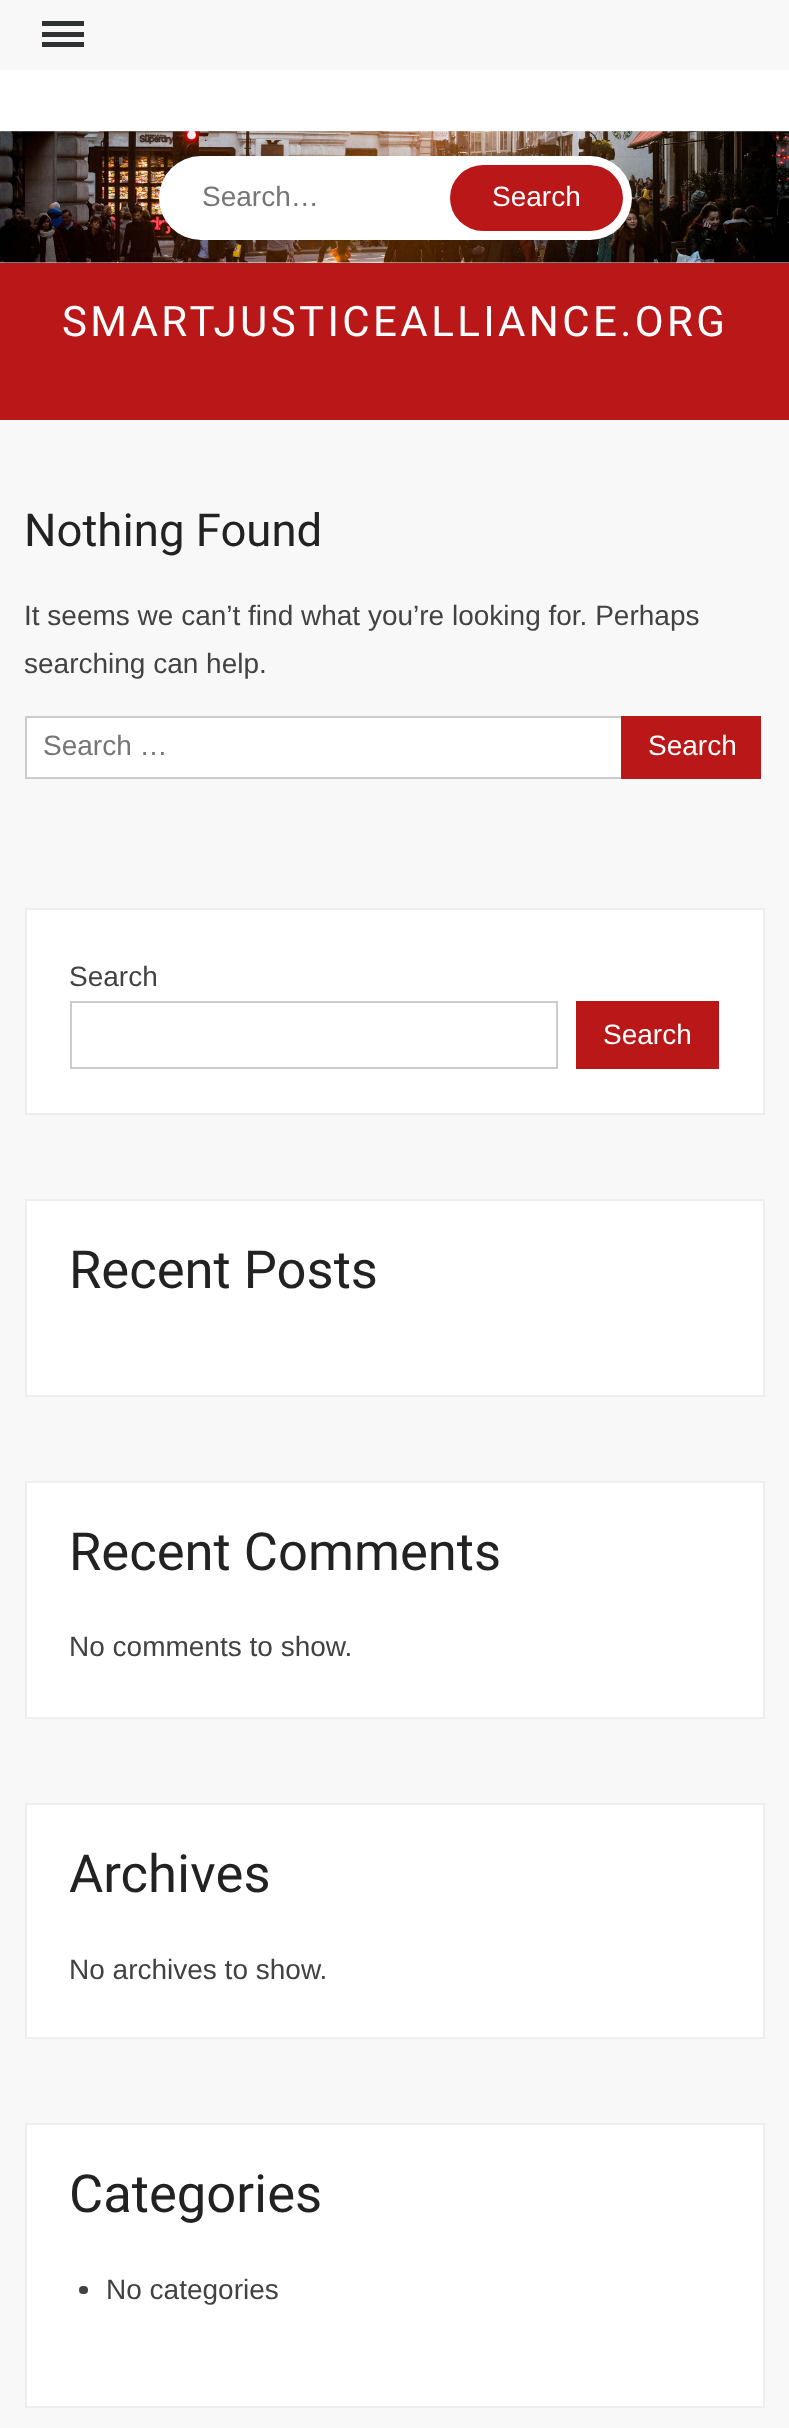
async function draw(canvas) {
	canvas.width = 789;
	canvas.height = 2428;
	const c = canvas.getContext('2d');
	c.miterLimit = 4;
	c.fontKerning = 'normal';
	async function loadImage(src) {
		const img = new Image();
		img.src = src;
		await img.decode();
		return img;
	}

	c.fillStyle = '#f8f8f8';
	c.fillRect(0, 0, 789, 2428);
	for (const [x, y, w, h, color] of [
		[42, 32, 42, 5, '#2e3233'],
		[42, 21, 42, 5, '#2e3233'],
		[42, 42, 42, 5, '#2e3233'],
		[0, 70, 789, 61, '#fff'],
		[0, 131, 789, 132, '#eee'],
	]) {
		c.fillStyle = color;
		c.fillRect(x, y, w, h);
	}
	c.drawImage(await loadImage('img1.png'), 0, 131, 789, 132);
	c.fillStyle = '#fff';
	c.beginPath();
	c.roundRect(159, 156, 473, 84, 42);
	c.fill();
	c.font = '28px Arimo';
	c.fillStyle = '#757575';
	c.fillText('Search…', 202, 206);
	c.save();
	c.beginPath();
	c.roundRect(168, 165, 455, 66, 33);
	c.clip();
	c.fillStyle = '#ba1818';
	c.beginPath();
	c.roundRect(450, 165, 175, 66, 33);
	c.fill();
	c.restore();
	c.fillStyle = '#fff';
	c.fillText('Search', 492, 206);
	c.fillStyle = '#ba1818';
	c.fillRect(0, 263, 789, 157);
	c.letterSpacing = '3.4px';
	c.font = '42px Heebo';
	c.fillStyle = '#fff';
	c.fillText('SMARTJUSTICEALLIANCE.ORG', 62, 336);
	c.letterSpacing = '0px';
	c.font = '45.5px Heebo';
	c.fillStyle = '#222';
	c.fillText('Nothing Found', 24, 546);
	c.font = '28px Arimo';
	c.fillStyle = '#424242';
	c.fillText('It seems we can’t find what you’re looking for. Perhaps', 24, 625);
	c.fillText('searching can help.', 24, 673);
	c.fillStyle = '#fff';
	c.beginPath();
	c.rect(26, 717, 596, 61);
	c.fill();
	c.strokeStyle = '#ccc';
	c.lineWidth = 2;
	c.stroke();
	c.fillStyle = '#757575';
	c.fillText('Search …', 43, 755);
	c.fillStyle = '#ba1818';
	c.fillRect(621, 716, 140, 63);
	c.fillStyle = '#fff';
	c.fillText('Search', 648, 755);
	c.beginPath();
	c.rect(26, 909, 738, 205);
	c.fill();
	c.strokeStyle = '#eee';
	c.stroke();
	c.fillStyle = '#424242';
	c.fillText('Search', 69, 986);
	c.strokeStyle = '#ccc';
	c.strokeRect(71, 1002, 486, 66);
	c.fillStyle = '#ba1818';
	c.fillRect(576, 1001, 143, 68);
	c.fillStyle = '#fff';
	c.fillText('Search', 603, 1044);
	c.beginPath();
	c.rect(26, 1200, 738, 196);
	c.fill();
	c.strokeStyle = '#eee';
	c.stroke();
	c.font = '52.5px Heebo';
	c.fillStyle = '#222';
	c.fillText('Recent Posts', 69, 1288);
	c.fillStyle = '#fff';
	c.beginPath();
	c.rect(26, 1482, 738, 236);
	c.fill();
	c.stroke();
	c.fillStyle = '#222';
	c.fillText('Recent Comments', 69, 1570);
	c.font = '28px Arimo';
	c.fillStyle = '#424242';
	c.fillText('No comments to show.', 69, 1656);
	c.fillStyle = '#fff';
	c.beginPath();
	c.rect(26, 1804, 738, 234);
	c.fill();
	c.stroke();
	c.font = '52.5px Heebo';
	c.fillStyle = '#222';
	c.fillText('Archives', 69, 1892);
	c.font = '28px Arimo';
	c.fillStyle = '#424242';
	c.fillText('No archives to show.', 69, 1979);
	c.fillStyle = '#fff';
	c.beginPath();
	c.rect(26, 2124, 738, 283);
	c.fill();
	c.stroke();
	c.font = '52.5px Heebo';
	c.fillStyle = '#222';
	c.fillText('Categories', 69, 2212);
	c.fillStyle = '#424242';
	c.beginPath();
	c.roundRect(79, 2286, 9, 8, 4);
	c.fill();
	c.font = '28px Arimo';
	c.fillText('No categories', 106, 2299);
}

draw(document.querySelector('canvas'));
